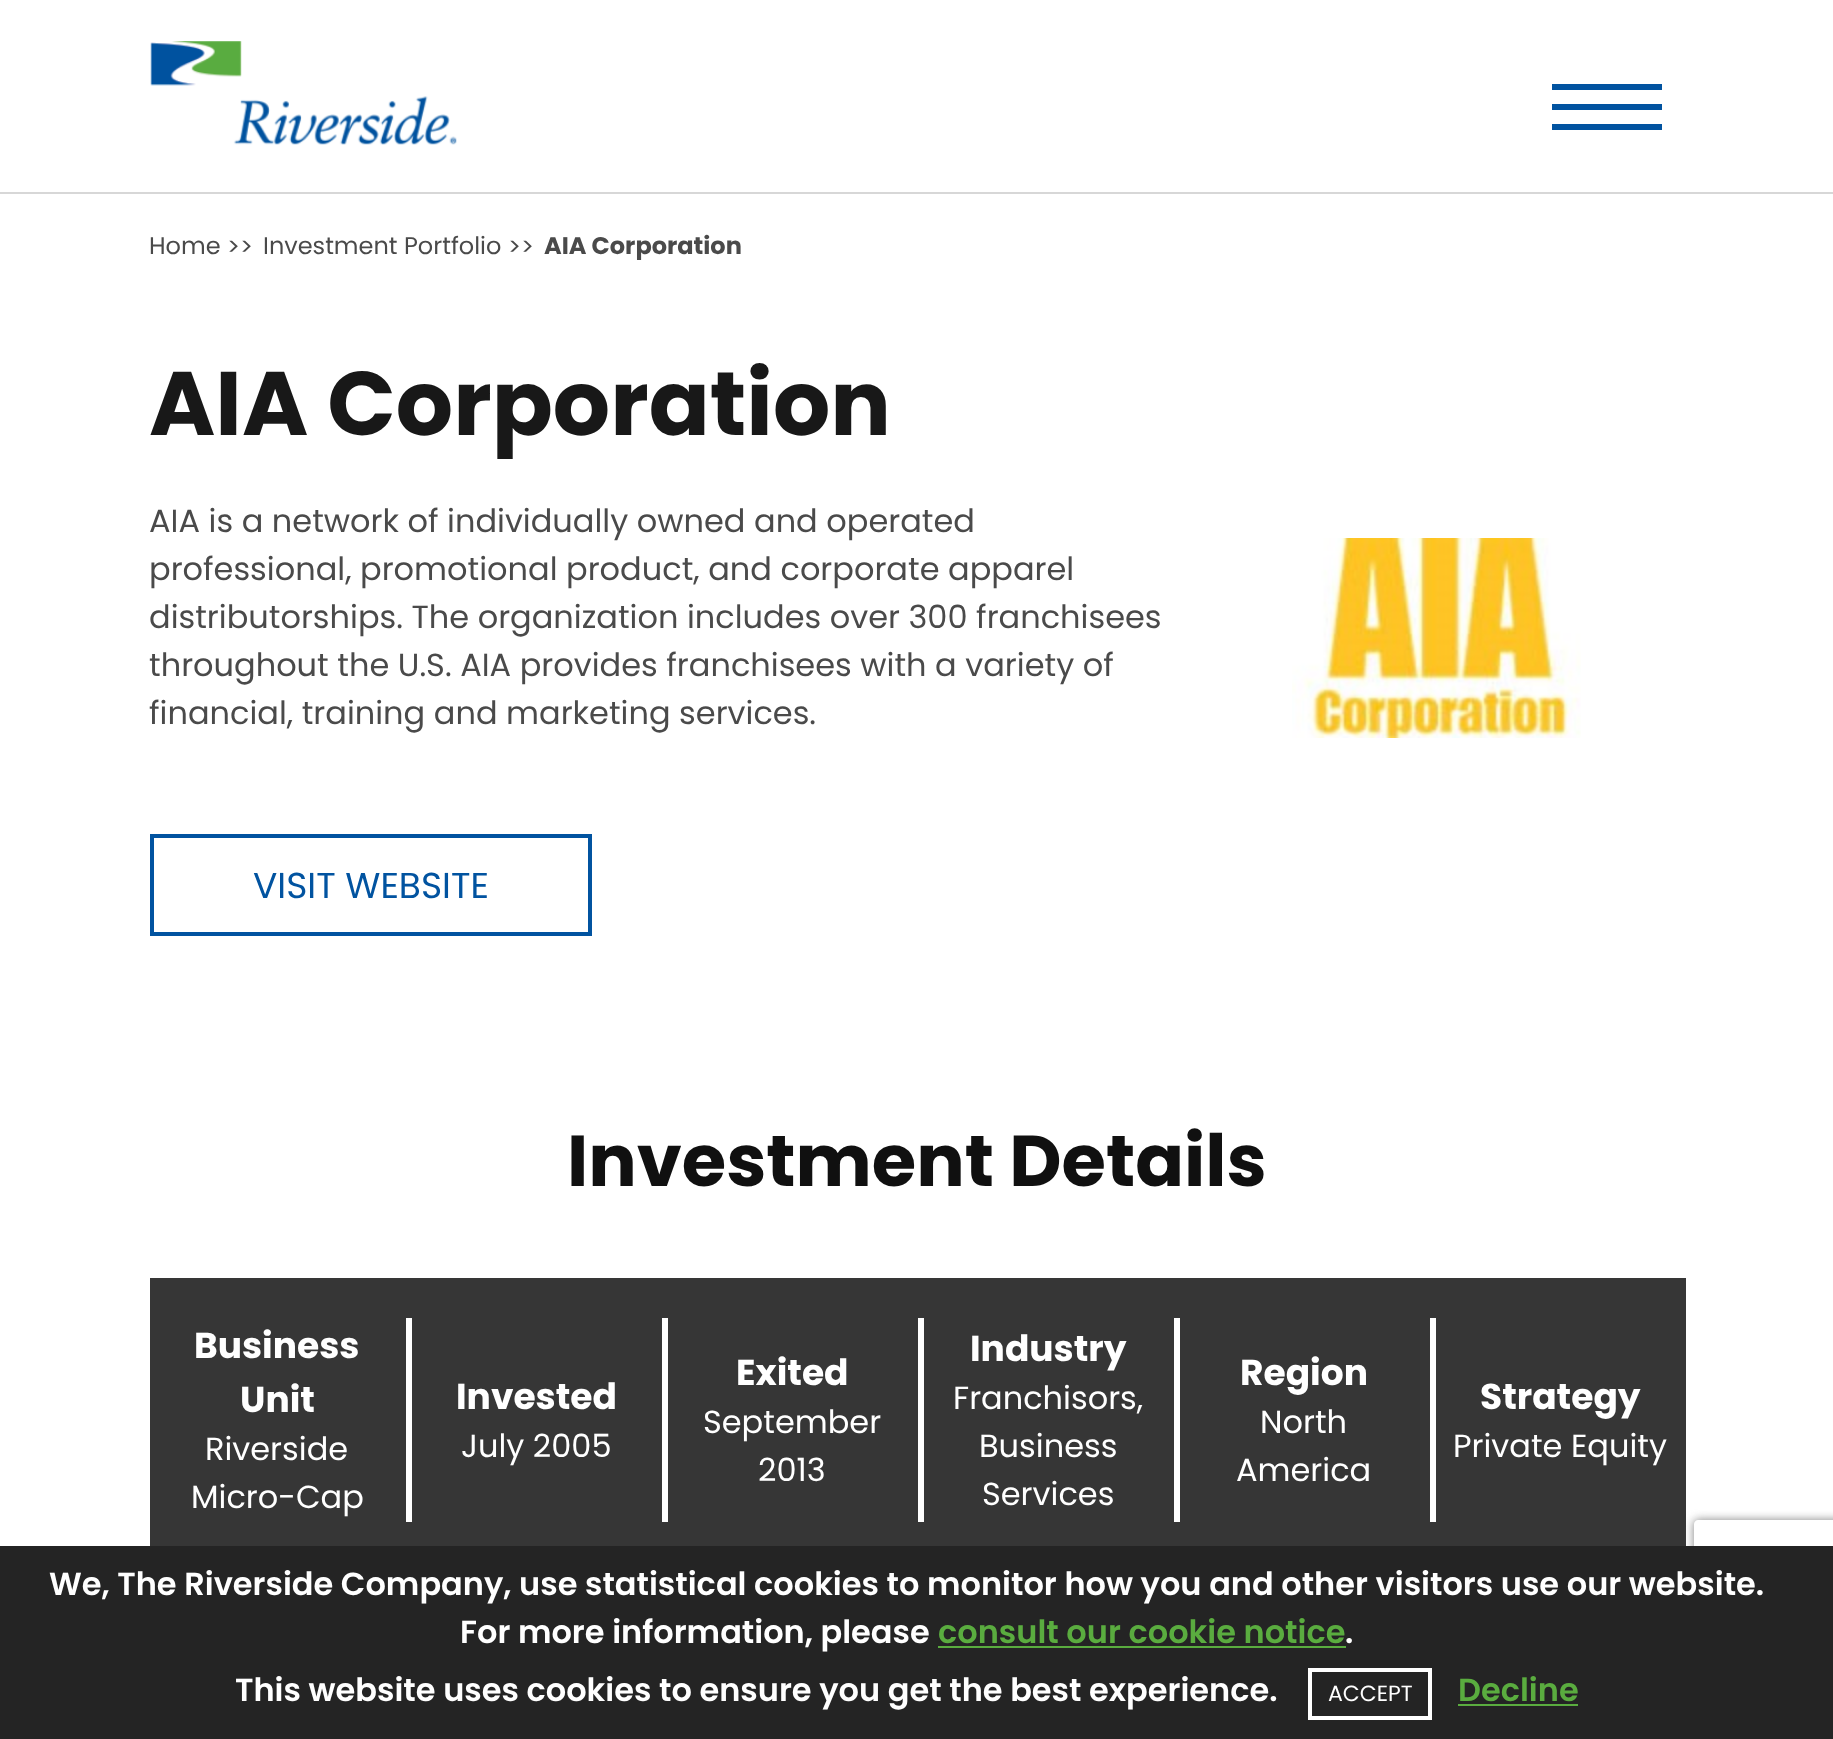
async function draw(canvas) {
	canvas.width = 1833;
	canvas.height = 1739;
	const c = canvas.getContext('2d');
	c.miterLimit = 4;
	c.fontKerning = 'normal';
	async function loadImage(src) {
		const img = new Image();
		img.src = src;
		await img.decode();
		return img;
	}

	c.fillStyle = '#fff';
	c.fillRect(0, 0, 1833, 1739);
	c.fillStyle = '#d7d7d7';
	c.fillRect(0, 192, 1833, 2);
	c.drawImage(await loadImage('img1.png'), 150, 41, 307, 104);
	for (const [x, y, w, h, color] of [
		[1552, 84, 110, 6, '#0153a0'],
		[1552, 104, 110, 6, '#0153a0'],
		[1552, 124, 110, 6, '#0153a0'],
	]) {
		c.fillStyle = color;
		c.fillRect(x, y, w, h);
	}
	c.font = '24px Poppins';
	c.fillStyle = '#4a4a4a';
	for (const [text, x, y] of [
		['Home', 149, 254],
		['>>', 227, 255],
		['Investment Portfolio', 263, 254],
		['>>', 508, 255],
	]) {
		c.fillText(text, x, y);
	}
	c.save();
	c.beginPath();
	c.rect(0, 234, 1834, 26);
	c.clip();
	c.font = 'bold 24px Poppins';
	c.fillText('AIA Corporation', 544, 254);
	c.restore();
	c.font = 'bold 90px Poppins';
	c.fillStyle = '#181818';
	c.fillText('AIA Corporation', 149, 435);
	c.font = '32px Poppins';
	c.fillStyle = '#4a4a4a';
	for (const [text, x, y] of [
		['AIA is a network of individually owned and operated', 149, 532],
		['professional, promotional product, and corporate apparel', 149, 580],
		['distributorships. The organization includes over 300 franchisees', 149, 628],
		['throughout the U.S. AIA provides franchisees with a variety of', 149, 676],
		['financial, training and marketing services.', 149, 724],
	]) {
		c.fillText(text, x, y);
	}
	c.strokeStyle = '#0153a0';
	c.lineWidth = 4;
	c.strokeRect(152, 836, 438, 98);
	c.font = '36px Poppins';
	c.fillStyle = '#0153a0';
	c.fillText('VISIT WEBSITE', 253, 898);
	c.drawImage(await loadImage('img2.png'), 1292, 538, 289, 200);
	c.font = 'bold 72px Poppins';
	c.fillStyle = '#101010';
	c.fillText('Investment Details', 567, 1186);
	c.fillStyle = '#363636';
	c.fillRect(150, 1278, 1536, 268);
	c.font = 'bold 36px Poppins';
	c.fillStyle = '#fff';
	c.fillText('Business', 194, 1358);
	c.fillText('Unit', 240, 1412);
	c.font = '32px Poppins';
	c.fillText('Riverside', 205, 1460);
	c.fillText('Micro-Cap', 191, 1508);
	c.fillRect(406, 1318, 6, 204);
	c.font = 'bold 36px Poppins';
	c.fillText('Invested', 456, 1409);
	c.font = '32px Poppins';
	c.fillText('July 2005', 461, 1457);
	c.fillRect(662, 1318, 6, 204);
	c.font = 'bold 36px Poppins';
	c.fillText('Exited', 736, 1385);
	c.font = '32px Poppins';
	c.fillText('September', 703, 1433);
	c.fillText('2013', 758, 1481);
	c.fillRect(918, 1318, 6, 204);
	c.font = 'bold 36px Poppins';
	c.fillText('Industry', 970, 1361);
	c.font = '32px Poppins';
	for (const [text, x, y] of [
		['Franchisors,', 953, 1409],
		['Business', 979, 1457],
		['Services', 982, 1505],
	]) {
		c.fillText(text, x, y);
	}
	c.fillRect(1174, 1318, 6, 204);
	c.font = 'bold 36px Poppins';
	c.fillText('Region', 1240, 1385);
	c.font = '32px Poppins';
	c.fillText('North', 1260, 1433);
	c.fillText('America', 1236, 1481);
	c.fillRect(1430, 1318, 6, 204);
	c.font = 'bold 36px Poppins';
	c.fillText('Strategy', 1480, 1409);
	c.font = '32px Poppins';
	c.fillText('Private Equity', 1453, 1457);
	c.save();
	c.beginPath();
	c.moveTo(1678, 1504);
	c.lineTo(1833, 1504);
	c.lineTo(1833, 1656);
	c.lineTo(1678, 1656);
	c.closePath();
	c.moveTo(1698, 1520);
	c.lineTo(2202, 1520);
	c.bezierCurveTo(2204, 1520, 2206, 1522, 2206, 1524);
	c.lineTo(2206, 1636);
	c.bezierCurveTo(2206, 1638, 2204, 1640, 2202, 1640);
	c.lineTo(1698, 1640);
	c.bezierCurveTo(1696, 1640, 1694, 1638, 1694, 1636);
	c.lineTo(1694, 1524);
	c.bezierCurveTo(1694, 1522, 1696, 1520, 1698, 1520);
	c.closePath();
	c.clip('evenodd');
	c.fillStyle = '#808080';
	c.filter = 'blur(5px)';
	c.beginPath();
	c.roundRect(1694, 1520, 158, 120, 4);
	c.fill();
	c.filter = 'none';
	c.restore();
	c.fillStyle = '#242424';
	c.fillRect(0, 1546, 1833, 193);
	c.font = '600 32px Poppins';
	c.fillStyle = '#fff';
	c.fillText('We, The Riverside Company, use statistical cookies to monitor how you and other visitors use our website.', 49, 1595);
	c.fillText('For more information, please', 460, 1643);
	c.fillStyle = '#5aac3f';
	c.fillText('consult our cookie notice', 938, 1643);
	c.fillRect(938, 1646, 408, 2);
	c.fillStyle = '#fff';
	c.fillText('.', 1345, 1643);
	c.fillText('This website uses cookies to ensure you get the best experience.', 235, 1701);
	c.strokeStyle = '#fff';
	c.strokeRect(1310, 1670, 120, 48);
	c.font = '22px Poppins';
	c.fillText('ACCEPT', 1328, 1701);
	c.font = '600 32px Poppins';
	c.fillStyle = '#5aac3f';
	c.fillText('Decline', 1458, 1701);
	c.fillRect(1458, 1704, 120, 2);
}

draw(document.querySelector('canvas'));
